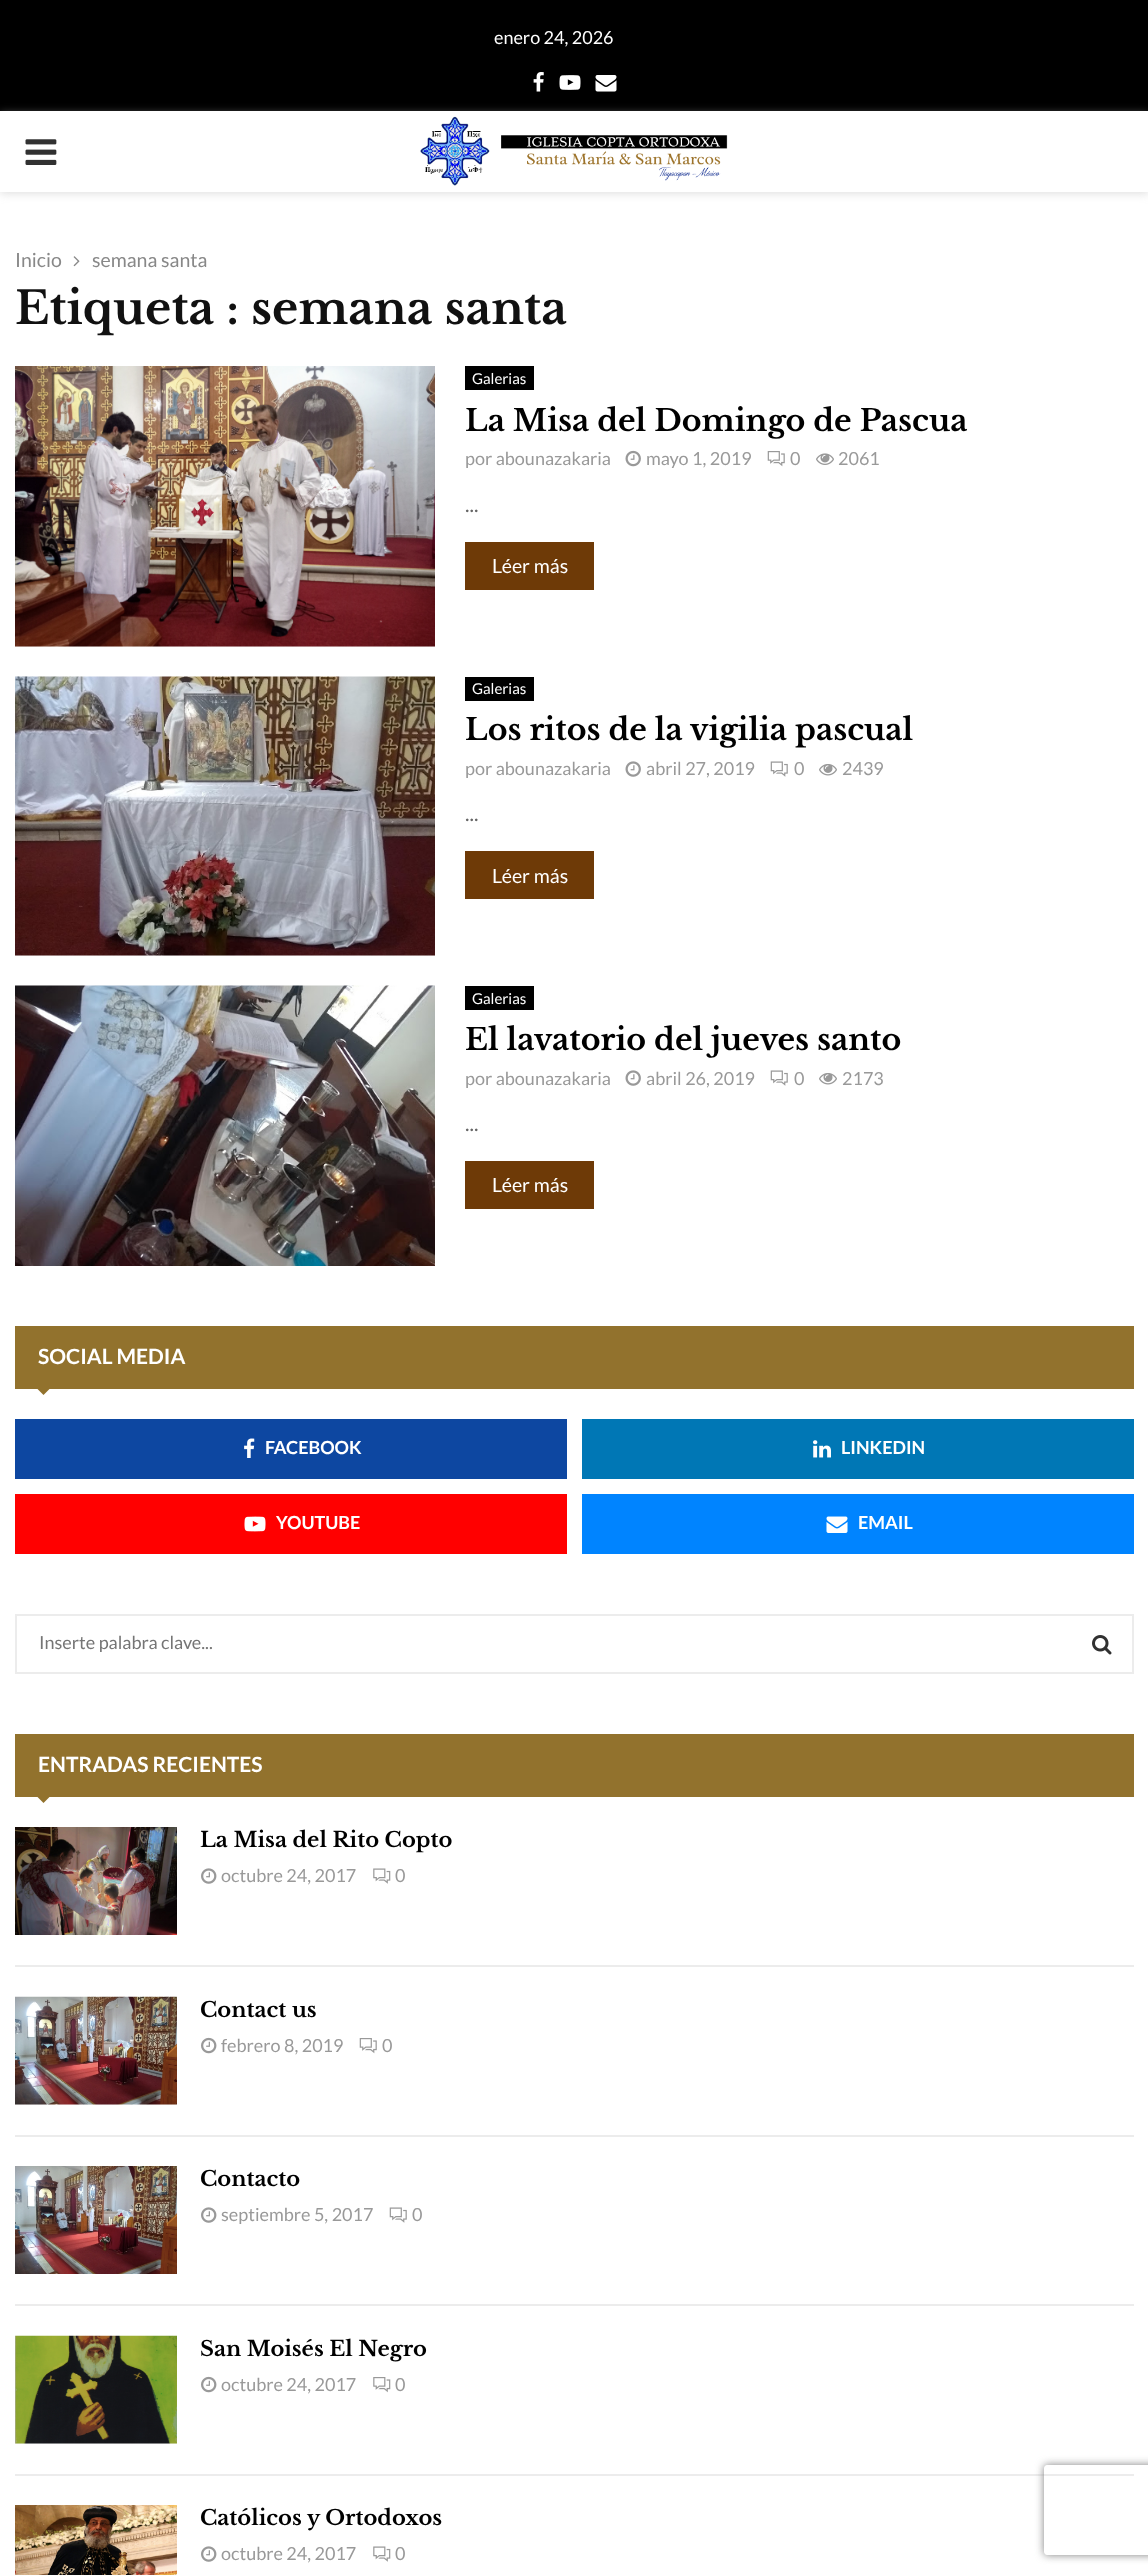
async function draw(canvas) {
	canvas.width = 1148;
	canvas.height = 2575;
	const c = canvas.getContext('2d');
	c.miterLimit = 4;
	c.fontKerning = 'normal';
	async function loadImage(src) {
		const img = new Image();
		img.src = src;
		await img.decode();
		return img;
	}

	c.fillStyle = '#fff';
	c.fillRect(0, 0, 1148, 2575);
	c.fillStyle = '#000';
	c.fillRect(0, 0, 1148, 111);
	c.font = '18px Lato';
	c.fillStyle = '#fff';
	c.fillText('enero 24, 2026', 494, 44);
	c.drawImage(await loadImage('img1.png'), 533, 72, 11, 20);
	c.drawImage(await loadImage('img2.png'), 559, 75, 22, 15);
	c.drawImage(await loadImage('img3.png'), 595, 75, 22, 17);
	c.save();
	c.beginPath();
	c.moveTo(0, 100);
	c.lineTo(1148, 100);
	c.lineTo(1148, 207);
	c.lineTo(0, 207);
	c.closePath();
	c.moveTo(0, 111);
	c.lineTo(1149, 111);
	c.lineTo(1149, 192);
	c.lineTo(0, 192);
	c.closePath();
	c.clip('evenodd');
	c.fillStyle = '#bebebe75';
	c.filter = 'blur(4px)';
	c.beginPath();
	c.rect(0, 113, 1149, 81);
	c.fill();
	c.filter = 'none';
	c.restore();
	c.drawImage(await loadImage('img4.png'), 25, 139, 32, 26);
	c.drawImage(await loadImage('img5.png'), 420, 116, 308, 70);
	c.font = '19.5px Lato';
	c.fillStyle = '#888';
	c.fillText('Inicio', 15, 267);
	c.drawImage(await loadImage('img6.png'), 73, 256, 7, 11);
	c.fillText('semana santa', 92, 267);
	c.font = 'bold 45px Libre Baskerville';
	c.fillStyle = '#111';
	c.fillText('Etiqueta : semana santa', 15, 324);
	c.fillStyle = '#f5f5f5';
	c.fillRect(15, 646, 420, 1);
	c.drawImage(await loadImage('img7.png'), 15, 366, 420, 281);
	c.fillStyle = '#000';
	c.fillRect(465, 366, 69, 24);
	c.font = '15px Lato';
	c.fillStyle = '#fff';
	c.fillText('Galerias', 472, 384);
	c.font = 'bold 30px Libre Baskerville';
	c.fillStyle = '#000';
	c.fillText('La Misa del Domingo de Pascua', 465, 431);
	c.font = '18px Lato';
	c.fillStyle = '#999';
	c.fillText('por abounazakaria', 465, 465);
	c.drawImage(await loadImage('img8.png'), 625, 450, 16, 17);
	c.fillText('mayo 1, 2019', 646, 465);
	c.drawImage(await loadImage('img9.png'), 767, 451, 18, 16);
	c.fillText('0', 790, 465);
	c.drawImage(await loadImage('img10.png'), 816, 453, 18, 12);
	c.fillText('2061', 838, 465);
	c.font = '21px Lato';
	c.fillStyle = '#666';
	c.fillText('...', 465, 512);
	c.fillStyle = '#6e3a07';
	c.fillRect(465, 542, 129, 48);
	c.font = '19.5px Lato';
	c.fillStyle = '#fff';
	c.fillText('Léer más', 492, 573);
	c.fillStyle = '#f5f5f5';
	c.fillRect(15, 955, 420, 1);
	c.drawImage(await loadImage('img11.png'), 15, 676, 420, 280);
	c.fillStyle = '#000';
	c.fillRect(465, 677, 69, 24);
	c.font = '15px Lato';
	c.fillStyle = '#fff';
	c.fillText('Galerias', 472, 694);
	c.font = 'bold 30px Libre Baskerville';
	c.fillStyle = '#000';
	c.fillText('Los ritos de la vigilia pascual', 465, 740);
	c.font = '18px Lato';
	c.fillStyle = '#999';
	c.fillText('por abounazakaria', 465, 775);
	c.drawImage(await loadImage('img12.png'), 625, 761, 16, 16);
	c.fillText('abril 27, 2019', 646, 775);
	c.drawImage(await loadImage('img13.png'), 770, 761, 18, 16);
	c.fillText('0', 794, 775);
	c.drawImage(await loadImage('img14.png'), 819, 764, 18, 12);
	c.fillText('2439', 842, 775);
	c.font = '21px Lato';
	c.fillStyle = '#666';
	c.fillText('...', 465, 821);
	c.fillStyle = '#6e3a07';
	c.fillRect(465, 851, 129, 48);
	c.font = '19.5px Lato';
	c.fillStyle = '#fff';
	c.fillText('Léer más', 492, 883);
	c.drawImage(await loadImage('img15.png'), 15, 985, 420, 281);
	c.fillStyle = '#000';
	c.fillRect(465, 986, 69, 24);
	c.font = '15px Lato';
	c.fillStyle = '#fff';
	c.fillText('Galerias', 472, 1004);
	c.font = 'bold 30px Libre Baskerville';
	c.fillStyle = '#000';
	c.fillText('El lavatorio del jueves santo', 465, 1050);
	c.font = '18px Lato';
	c.fillStyle = '#999';
	c.fillText('por abounazakaria', 465, 1085);
	c.drawImage(await loadImage('img12.png'), 625, 1070, 16, 16);
	c.fillText('abril 26, 2019', 646, 1085);
	c.drawImage(await loadImage('img13.png'), 770, 1070, 18, 16);
	c.fillText('0', 794, 1085);
	c.drawImage(await loadImage('img14.png'), 819, 1073, 18, 12);
	c.fillText('2173', 842, 1085);
	c.font = '21px Lato';
	c.fillStyle = '#666';
	c.fillText('...', 465, 1131);
	c.fillStyle = '#6e3a07';
	c.fillRect(465, 1161, 129, 48);
	c.font = '19.5px Lato';
	c.fillStyle = '#fff';
	c.fillText('Léer más', 492, 1192);
	c.fillStyle = '#92722d';
	c.fillRect(15, 1326, 1119, 63);
	c.font = 'bold 21px Lato';
	c.fillStyle = '#fff';
	c.fillText('SOCIAL MEDIA', 38, 1364);
	c.fillStyle = '#92722d';
	c.beginPath();
	c.moveTo(37.5, 1389);
	c.lineTo(49.5, 1389);
	c.lineTo(43.5, 1395);
	c.closePath();
	c.fill();
	c.fillStyle = '#0d47a1';
	c.fillRect(15, 1419, 552, 60);
	c.drawImage(await loadImage('img16.png'), 244, 1438, 11, 20);
	c.font = 'bold 18px Lato';
	c.fillStyle = '#fff';
	c.fillText('FACEBOOK', 265, 1454);
	c.fillStyle = '#0077b5';
	c.fillRect(582, 1419, 552, 60);
	c.drawImage(await loadImage('img17.png'), 813, 1440, 18, 18);
	c.fillStyle = '#fff';
	c.fillText('LINKEDIN', 841, 1454);
	c.fillStyle = '#f00';
	c.fillRect(15, 1494, 552, 60);
	c.drawImage(await loadImage('img18.png'), 244, 1516, 22, 16);
	c.fillStyle = '#fff';
	c.fillText('YOUTUBE', 276, 1529);
	c.fillStyle = '#0084ff';
	c.fillRect(582, 1494, 552, 60);
	c.drawImage(await loadImage('img19.png'), 826, 1516, 22, 17);
	c.fillStyle = '#fff';
	c.fillText('EMAIL', 858, 1529);
	c.strokeStyle = '#ececec';
	c.lineWidth = 2;
	c.strokeRect(16, 1615, 1117, 58);
	c.font = '18px Lato';
	c.fillStyle = '#757575';
	c.fillText('Inserte palabra clave...', 39, 1649);
	c.drawImage(await loadImage('img20.png'), 1092, 1635, 20, 20);
	c.fillStyle = '#92722d';
	c.fillRect(15, 1734, 1119, 63);
	c.font = 'bold 21px Lato';
	c.fillStyle = '#fff';
	c.fillText('ENTRADAS RECIENTES', 38, 1772);
	c.fillStyle = '#92722d';
	c.beginPath();
	c.moveTo(37.5, 1797);
	c.lineTo(49.5, 1797);
	c.lineTo(43.5, 1803);
	c.closePath();
	c.fill();
	c.fillStyle = '#ececec';
	c.fillRect(15, 1965, 1119, 2);
	c.drawImage(await loadImage('img21.png'), 15, 1827, 162, 108);
	c.font = 'bold 21px Libre Baskerville';
	c.fillStyle = '#000';
	c.fillText('La Misa del Rito Copto', 200, 1847);
	c.drawImage(await loadImage('img22.png'), 201, 1868, 16, 16);
	c.font = '18px Lato';
	c.fillStyle = '#999';
	c.fillText('octubre 24, 2017', 221, 1882);
	c.drawImage(await loadImage('img23.png'), 373, 1868, 18, 16);
	c.fillText('0', 395, 1882);
	c.fillStyle = '#ececec';
	c.fillRect(15, 2135, 1119, 2);
	c.fillStyle = '#f5f5f5';
	c.fillRect(15, 2104, 162, 1);
	c.drawImage(await loadImage('img24.png'), 15, 1996, 162, 109);
	c.font = 'bold 21px Libre Baskerville';
	c.fillStyle = '#000';
	c.fillText('Contact us', 200, 2017);
	c.drawImage(await loadImage('img25.png'), 201, 2037, 16, 17);
	c.font = '18px Lato';
	c.fillStyle = '#999';
	c.fillText('febrero 8, 2019', 221, 2052);
	c.drawImage(await loadImage('img9.png'), 359, 2038, 18, 16);
	c.fillText('0', 382, 2052);
	c.fillStyle = '#ececec';
	c.fillRect(15, 2304, 1119, 2);
	c.drawImage(await loadImage('img26.png'), 15, 2166, 162, 108);
	c.font = 'bold 21px Libre Baskerville';
	c.fillStyle = '#000';
	c.fillText('Contacto', 200, 2186);
	c.drawImage(await loadImage('img22.png'), 201, 2207, 16, 16);
	c.font = '18px Lato';
	c.fillStyle = '#999';
	c.fillText('septiembre 5, 2017', 221, 2221);
	c.drawImage(await loadImage('img13.png'), 389, 2207, 18, 16);
	c.fillText('0', 412, 2221);
	c.fillStyle = '#ececec';
	c.fillRect(15, 2474, 1119, 2);
	c.fillStyle = '#f5f5f5';
	c.fillRect(15, 2443, 162, 1);
	c.drawImage(await loadImage('img27.png'), 15, 2335, 162, 109);
	c.font = 'bold 21px Libre Baskerville';
	c.fillStyle = '#000';
	c.fillText('San Moisés El Negro', 200, 2356);
	c.drawImage(await loadImage('img25.png'), 201, 2376, 16, 17);
	c.font = '18px Lato';
	c.fillStyle = '#999';
	c.fillText('octubre 24, 2017', 221, 2391);
	c.drawImage(await loadImage('img28.png'), 373, 2377, 18, 16);
	c.fillText('0', 395, 2391);
	c.drawImage(await loadImage('img29.png'), 15, 2505, 162, 70);
	c.font = 'bold 21px Libre Baskerville';
	c.fillStyle = '#000';
	c.fillText('Católicos y Ortodoxos', 200, 2525);
	c.drawImage(await loadImage('img22.png'), 201, 2546, 16, 16);
	c.font = '18px Lato';
	c.fillStyle = '#999';
	c.fillText('octubre 24, 2017', 221, 2560);
	c.drawImage(await loadImage('img23.png'), 373, 2546, 18, 16);
	c.fillText('0', 395, 2560);
	c.save();
	c.beginPath();
	c.moveTo(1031, 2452);
	c.lineTo(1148, 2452);
	c.lineTo(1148, 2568);
	c.lineTo(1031, 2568);
	c.closePath();
	c.moveTo(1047, 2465);
	c.lineTo(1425, 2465);
	c.bezierCurveTo(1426.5, 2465, 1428, 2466.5, 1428, 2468);
	c.lineTo(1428, 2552);
	c.bezierCurveTo(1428, 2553.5, 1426.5, 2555, 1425, 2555);
	c.lineTo(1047, 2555);
	c.bezierCurveTo(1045.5, 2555, 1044, 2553.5, 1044, 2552);
	c.lineTo(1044, 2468);
	c.bezierCurveTo(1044, 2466.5, 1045.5, 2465, 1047, 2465);
	c.closePath();
	c.clip('evenodd');
	c.fillStyle = '#808080';
	c.filter = 'blur(4px)';
	c.beginPath();
	c.roundRect(1044, 2465, 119, 90, 3);
	c.fill();
	c.filter = 'none';
	c.restore();
}

draw(document.querySelector('canvas'));
